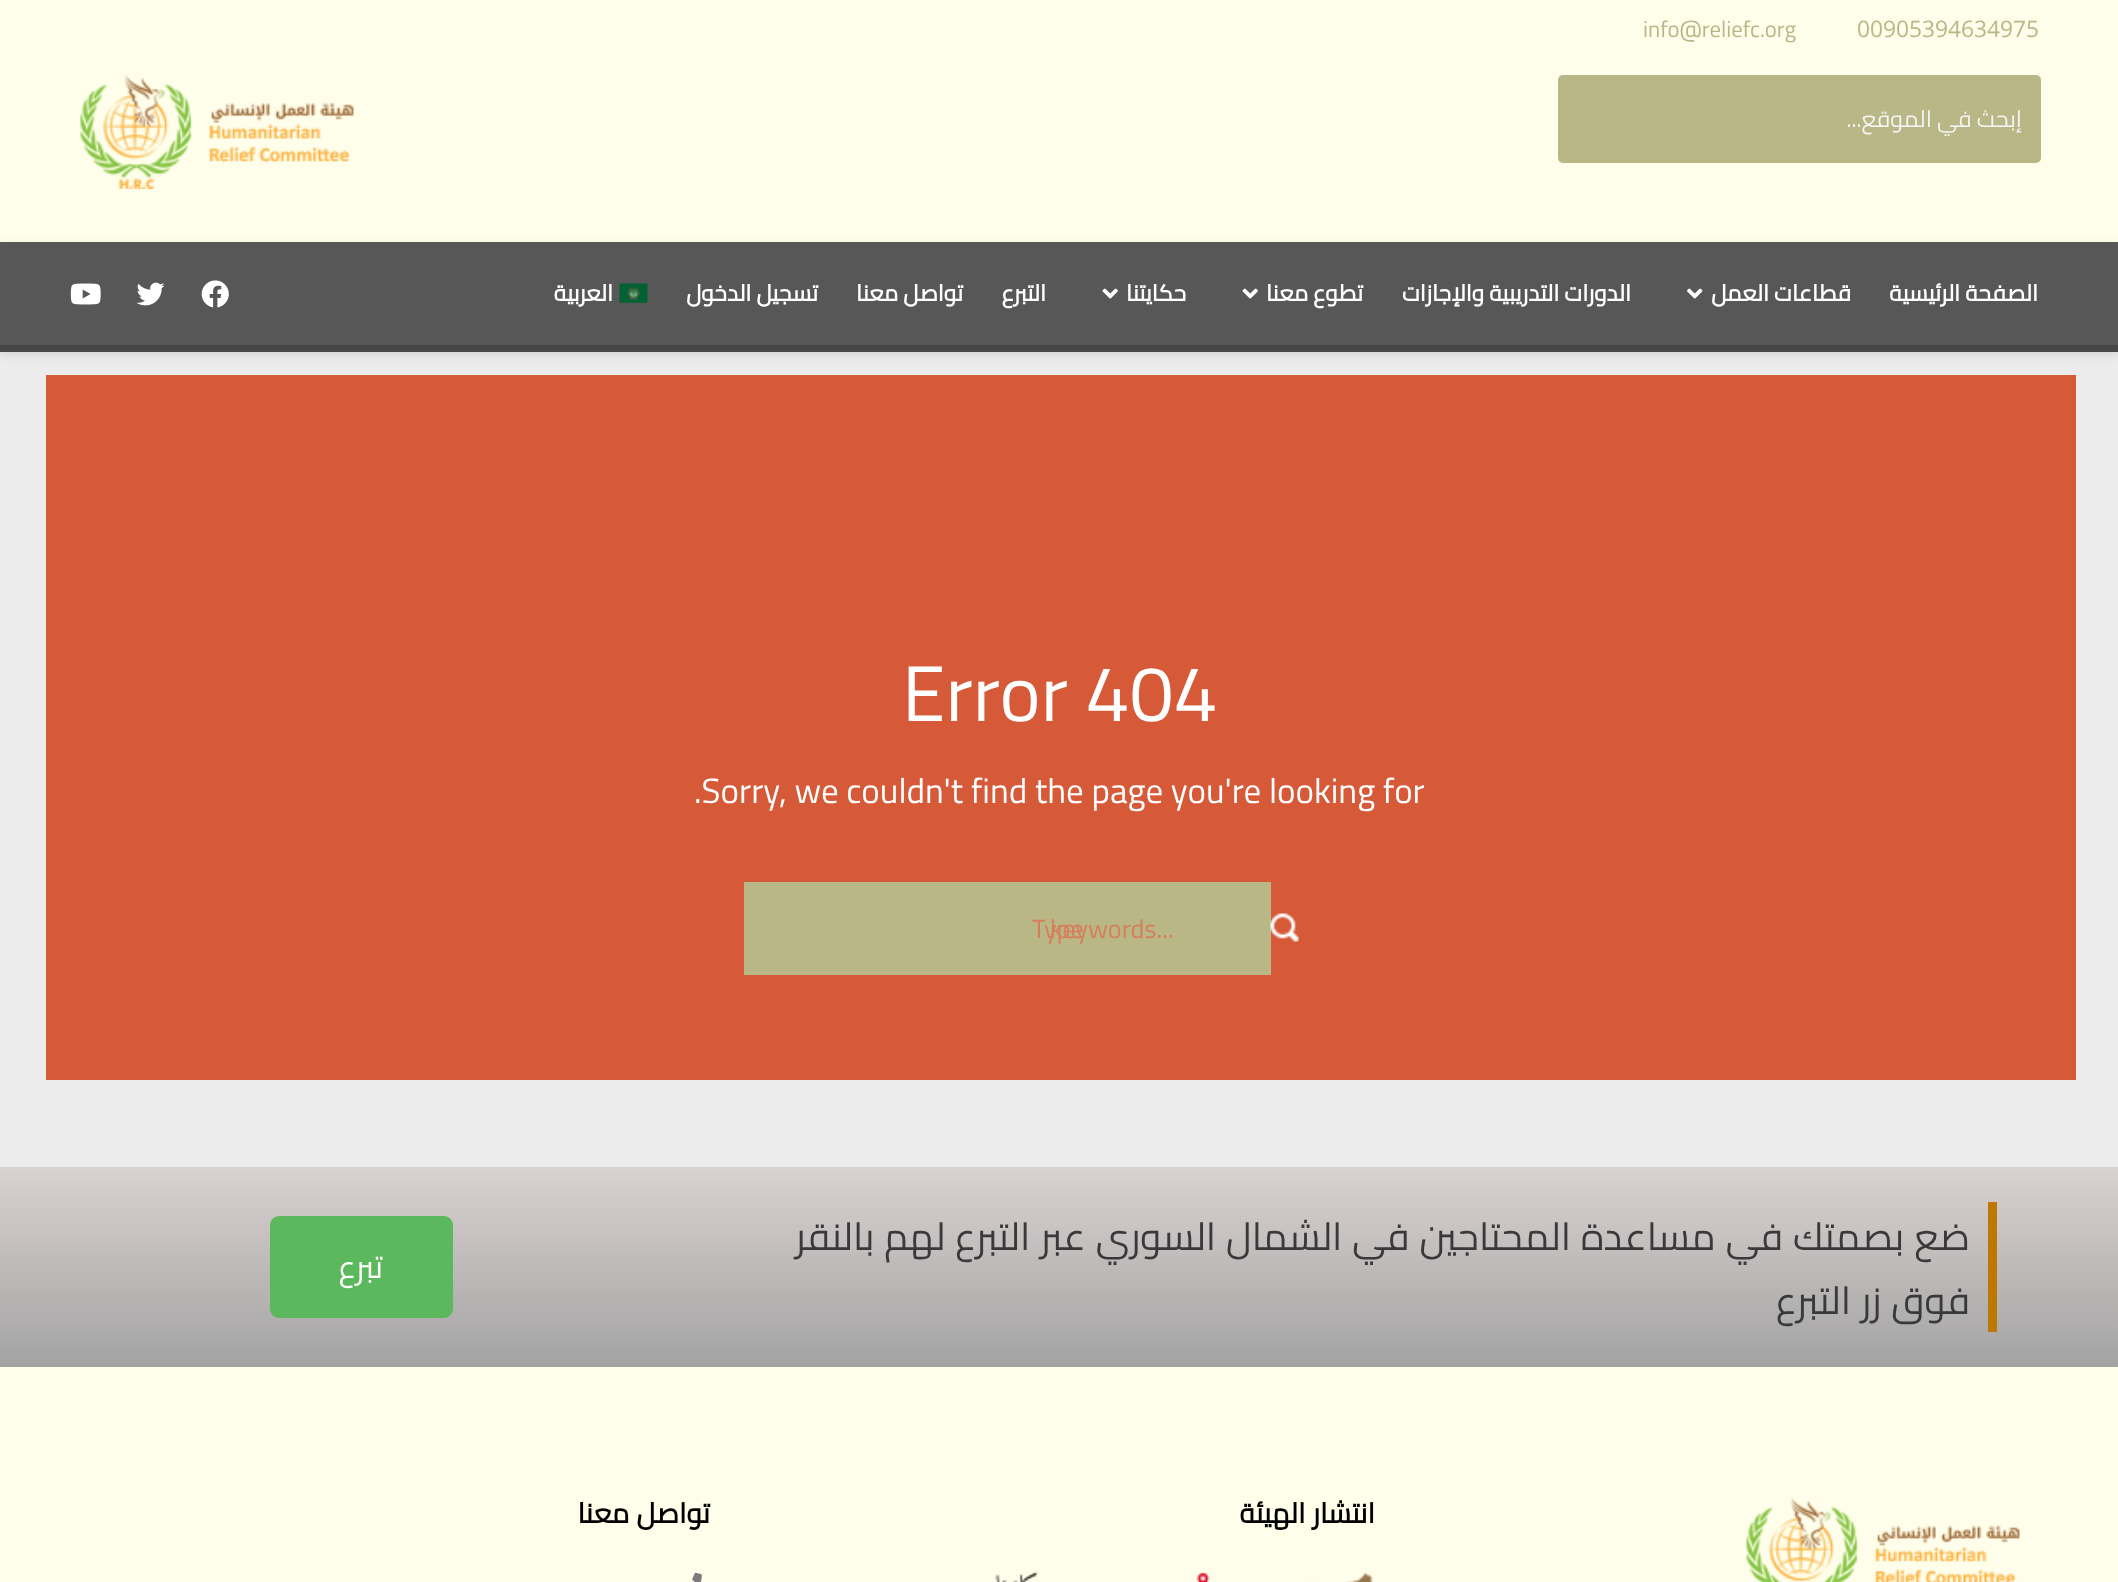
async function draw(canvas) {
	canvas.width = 2118;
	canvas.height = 1582;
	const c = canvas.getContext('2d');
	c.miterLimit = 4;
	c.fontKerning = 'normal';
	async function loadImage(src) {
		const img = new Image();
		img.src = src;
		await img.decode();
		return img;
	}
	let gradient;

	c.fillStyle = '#ececec';
	c.fillRect(0, 0, 2118, 1582);
	c.fillStyle = '#fffeeb';
	c.fillRect(0, 0, 2118, 242);
	c.font = '22.75px Open Sans';
	c.fillStyle = '#bab786';
	c.fillText('00905394634975', 1857, 37);
	c.font = '22.75px Cairo';
	c.fillText('info@reliefc.org', 1643, 37);
	c.beginPath();
	c.roundRect(1558, 75, 483, 88, 5);
	c.fill();
	c.direction = 'rtl';
	c.font = '23.25px Cairo';
	c.fillStyle = '#f5f5f5';
	c.fillText('إبحث في الموقع...', 2022, 127);
	c.drawImage(await loadImage('img1.png'), 80, 75, 274, 114);
	c.fillStyle = '#0000001a';
	c.filter = 'blur(4.5px)';
	c.beginPath();
	c.rect(0, 245, 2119, 110);
	c.fill();
	c.filter = 'none';
	c.fillStyle = '#575757';
	c.fillRect(0, 242, 2118, 103);
	c.fillStyle = '#474747';
	c.fillRect(0, 345, 2118, 7);
	c.font = 'bold 22.75px Cairo';
	c.fillStyle = '#fff';
	c.fillText('الصفحة الرئيسية', 2038, 301);
	c.fillText('قطاعات العمل', 1851, 301);
	c.drawImage(await loadImage('img2.png'), 1687, 288, 16, 11);
	c.fillText('الدورات التدريبية والإجازات', 1631, 301);
	c.fillText('تطوع معنا', 1363, 301);
	c.drawImage(await loadImage('img3.png'), 1242, 288, 16, 11);
	c.fillText('حكايتنا', 1186, 301);
	c.drawImage(await loadImage('img3.png'), 1102, 288, 16, 11);
	for (const [text, x, y] of [
		['التبرع', 1046, 301],
		['تواصل معنا', 963, 301],
		['تسجيل الدخول', 818, 301],
	]) {
		c.fillText(text, x, y);
	}
	c.drawImage(await loadImage('img4.png'), 619, 283, 29, 20);
	c.fillText('العربية', 613, 301);
	c.drawImage(await loadImage('img5.png'), 201, 280, 28, 28);
	c.drawImage(await loadImage('img6.png'), 136, 282, 29, 24);
	c.drawImage(await loadImage('img7.png'), 70, 283, 31, 22);
	c.fillStyle = '#d65938';
	c.fillRect(46, 375, 2030, 705);
	c.direction = 'ltr';
	c.font = '78.75px Cairo';
	c.fillStyle = '#fff';
	c.fillText('Error 404', 902, 721);
	c.font = '35px Cairo';
	c.fillText('.Sorry, we couldn\'t find the page you\'re looking for', 694, 803);
	c.fillStyle = '#bab786';
	c.fillRect(744, 882, 527, 93);
	c.drawImage(await loadImage('img8.png'), 1270, 913, 29, 29);
	c.font = '26.25px Cairo';
	c.fillStyle = '#d57f5c';
	c.fillText('Type', 1032, 938);
	c.fillText('keywords...', 1050, 938);
	gradient = c.createLinearGradient(1060, 1167, 1060, 1367);
	gradient.addColorStop(0, '#dad1d1');
	gradient.addColorStop(1, '#a3a3a3');
	c.fillStyle = gradient;
	c.fillRect(0, 1167, 2118, 200);
	c.fillStyle = '#bc7800';
	c.beginPath();
	c.moveTo(740, 1202);
	c.lineTo(1988, 1202);
	c.lineTo(1988, 1332);
	c.lineTo(740, 1332);
	c.lineTo(1997, 1332);
	c.lineTo(1997, 1202);
	c.closePath();
	c.fill();
	c.wordSpacing = '1.5px';
	c.direction = 'rtl';
	c.font = '38.5px Cairo';
	c.fillStyle = '#393939';
	c.fillText('ضع بصمتك في مساعدة المحتاجين في الشمال السوري عبر التبرع لهم بالنقر', 1970, 1250);
	c.fillText('فوق زر التبرع', 1970, 1314);
	c.fillStyle = '#5cb85c';
	c.beginPath();
	c.roundRect(270, 1216, 183, 102, 9);
	c.fill();
	c.wordSpacing = '0px';
	c.font = '32px Cairo';
	c.fillStyle = '#fff';
	c.fillText('تبرع', 383, 1278);
	c.fillStyle = '#fffeeb';
	c.fillRect(0, 1367, 2118, 215);
	c.drawImage(await loadImage('img9.png'), 1746, 1498, 274, 84);
	c.wordSpacing = '1px';
	c.font = 'bold 28px Cairo';
	c.fillStyle = '#000';
	c.fillText('انتشار الهيئة', 1375, 1523);
	c.drawImage(await loadImage('img10.png'), 995, 1571, 378, 11);
	c.fillText('تواصل معنا', 710, 1523);
	c.drawImage(await loadImage('img11.png'), 692, 1572, 10, 10);
}

draw(document.querySelector('canvas'));
